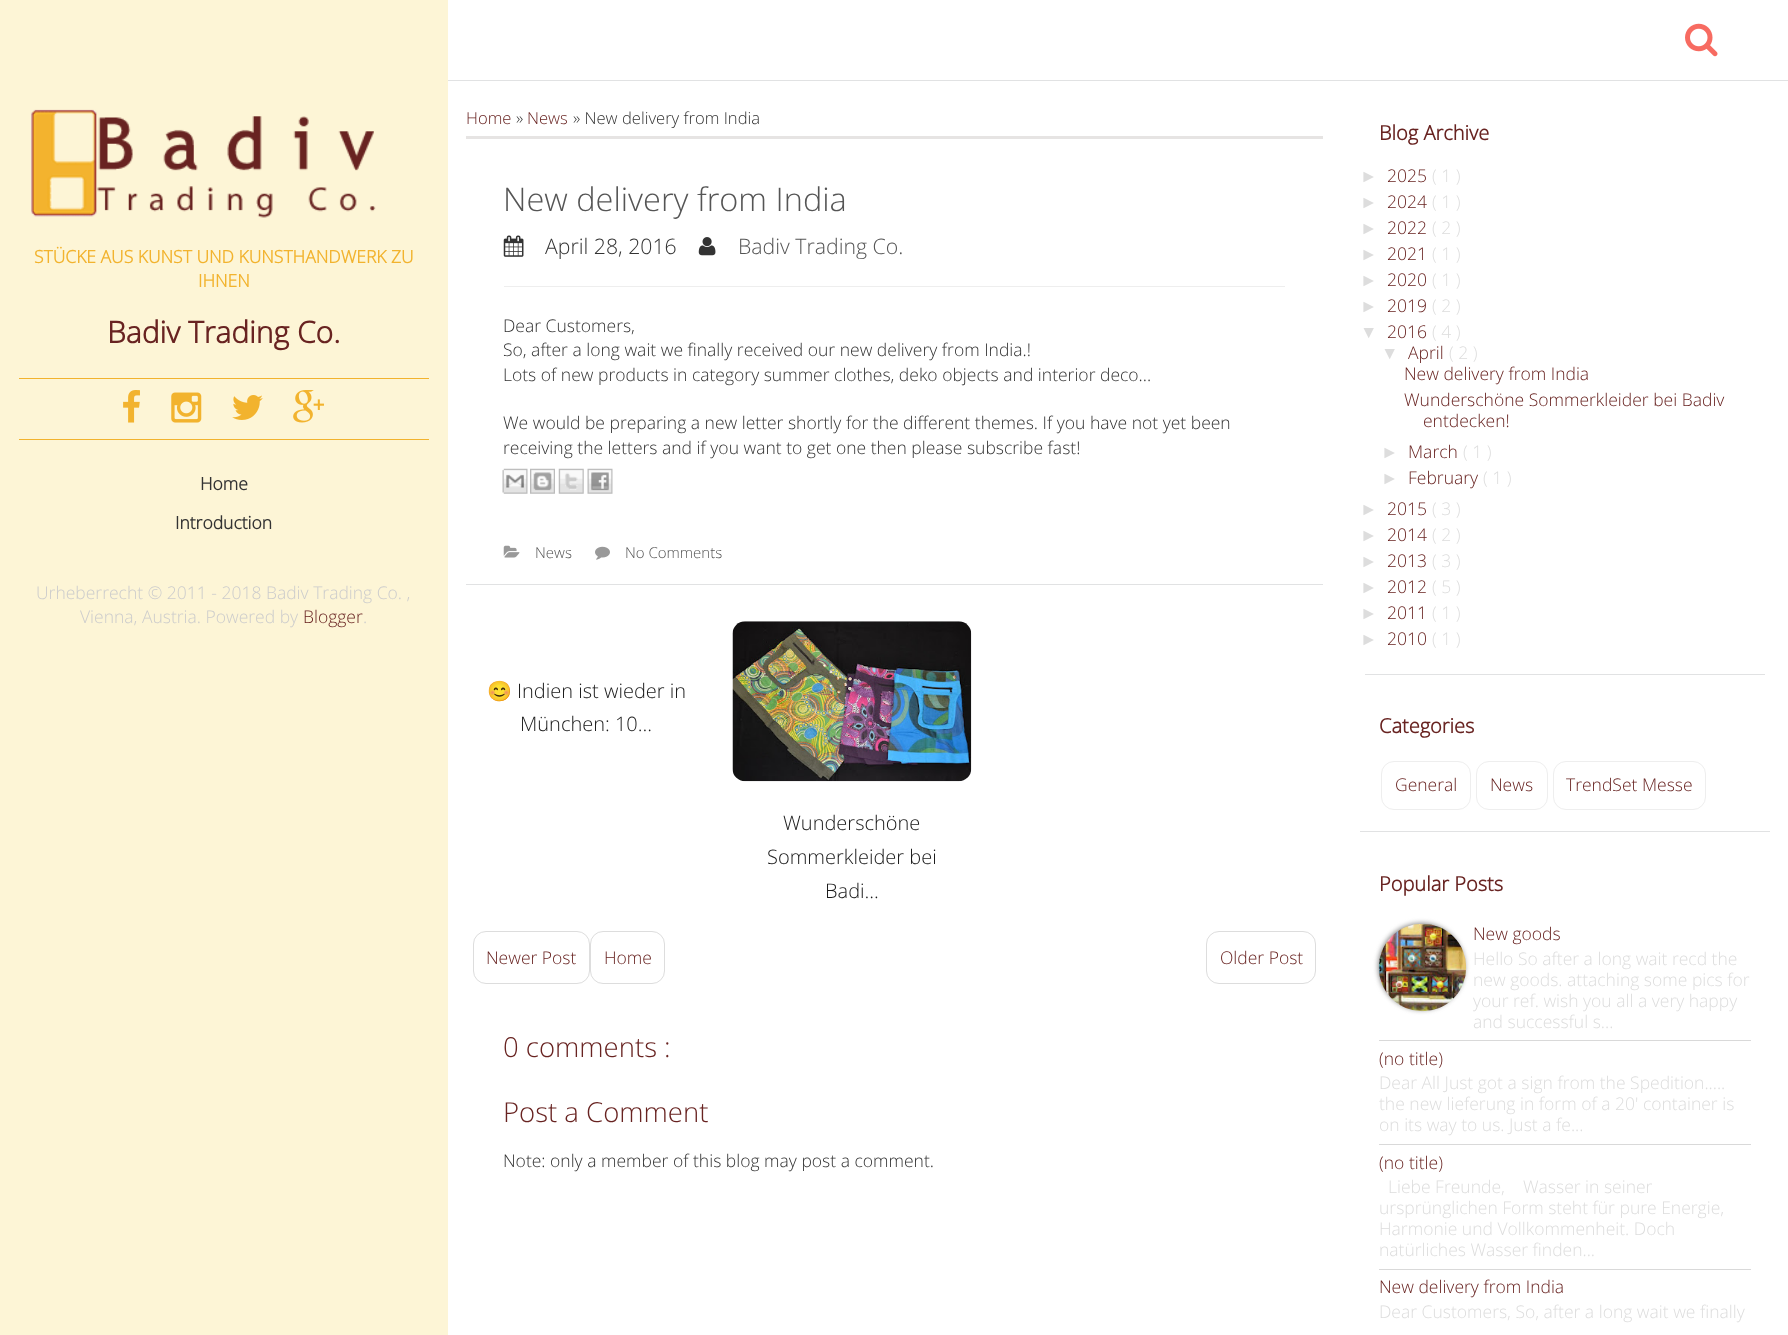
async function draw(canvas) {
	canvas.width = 1788;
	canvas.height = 1335;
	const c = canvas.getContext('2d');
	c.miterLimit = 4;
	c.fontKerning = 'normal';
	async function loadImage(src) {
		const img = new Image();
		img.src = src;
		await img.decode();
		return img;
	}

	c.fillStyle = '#fff';
	c.fillRect(0, 0, 1788, 1335);
	c.fillStyle = '#e1e2e3';
	c.fillRect(448, 80, 1340, 1);
	c.drawImage(await loadImage('img1.png'), 1685, 23, 33, 34);
	c.fillStyle = '#fdf5d6';
	c.fillRect(0, 0, 448, 1335);
	c.drawImage(await loadImage('img2.png'), 31, 109, 345, 109);
	c.font = 'bold 17.5px Open Sans';
	c.fillStyle = '#f2b32e';
	c.fillText('STÜCKE AUS KUNST UND KUNSTHANDWERK ZU', 34, 263);
	c.fillText('IHNEN', 198, 287);
	c.font = 'bold 30px Open Sans';
	c.fillStyle = '#682321';
	c.fillText('Badiv Trading Co.', 107, 343);
	c.fillStyle = '#f2b32e';
	c.fillRect(19, 378, 410, 1);
	c.fillRect(19, 439, 410, 1);
	c.drawImage(await loadImage('img3.png'), 123, 390, 17, 33);
	c.drawImage(await loadImage('img4.png'), 171, 392, 31, 31);
	c.drawImage(await loadImage('img5.png'), 232, 395, 31, 25);
	c.drawImage(await loadImage('img6.png'), 293, 390, 31, 33);
	c.font = 'bold 17.5px Open Sans';
	c.fillStyle = '#333';
	c.fillText('Home', 200, 490);
	c.fillText('Introduction', 175, 529);
	c.font = '300 17.5px Open Sans';
	c.fillStyle = '#ccc';
	c.fillText('Urheberrecht © 2011 - 2018 Badiv Trading Co. ,', 36, 599);
	c.fillText('Vienna, Austria. Powered by', 80, 623);
	c.fillStyle = '#682321';
	c.fillText('Blogger', 303, 623);
	c.fillStyle = '#ccc';
	c.fillText('.', 363, 623);
	c.fillStyle = '#e6e4e3';
	c.fillRect(466, 136, 857, 3);
	c.font = '300 16.6px Open Sans';
	c.fillStyle = '#682321';
	c.fillText('Home', 466, 124);
	c.fillStyle = '#333';
	c.fillText('»', 516, 124);
	c.fillStyle = '#682321';
	c.fillText('News', 527, 124);
	c.fillStyle = '#333';
	c.fillText('» New delivery from India', 573, 124);
	c.fillStyle = '#e1e2e3';
	c.fillRect(466, 584, 857, 1);
	c.font = '300 32.5px Open Sans';
	c.fillStyle = '#555';
	c.fillText('New delivery from India', 503, 211);
	c.drawImage(await loadImage('img7.png'), 503, 235, 21, 22);
	c.font = '300 21.25px Open Sans';
	c.fillStyle = '#333';
	c.fillText('April 28, 2016', 545, 254);
	c.drawImage(await loadImage('img8.png'), 698, 237, 18, 19);
	c.fillStyle = '#555';
	c.fillText('Badiv Trading Co.', 738, 254);
	c.fillStyle = '#eee';
	c.fillRect(504, 286, 781, 1);
	c.font = '300 17.5px Open Sans';
	c.fillStyle = '#333';
	for (const [text, x, y] of [
		['Dear Customers,', 503, 332],
		['So, after a long wait we finally received our new delivery from India.!', 503, 356],
		['Lots of new products in category summer clothes, deko objects and interior deco...', 503, 381],
		['We would be preparing a new letter shortly for the different themes. If you have not yet been', 503, 429],
		['receiving the letters and if you want to get one then please subscribe fast!', 503, 454],
	]) {
		c.fillText(text, x, y);
	}
	c.drawImage(await loadImage('img9.png'), 502, 468, 26, 26);
	c.drawImage(await loadImage('img10.png'), 530, 468, 25, 26);
	c.drawImage(await loadImage('img11.png'), 558, 468, 26, 26);
	c.drawImage(await loadImage('img12.png'), 587, 468, 26, 26);
	c.drawImage(await loadImage('img13.png'), 503, 545, 17, 13);
	c.font = '300 15px Open Sans';
	c.fillStyle = '#555';
	c.fillText('News', 535, 558);
	c.drawImage(await loadImage('img14.png'), 595, 546, 15, 14);
	c.fillText('No Comments', 625, 558);
	c.font = '20px Noto Color Emoji';
	c.fillStyle = '#191919';
	c.fillText('😊', 487, 698);
	c.font = '300 20px Open Sans';
	c.fillText('Indien ist wieder in', 517, 698);
	c.fillText('München: 10...', 520, 731);
	c.drawImage(await loadImage('img15.png'), 732, 621, 240, 161);
	for (const [text, x, y] of [
		['Wunderschöne', 783, 830],
		['Sommerkleider bei', 767, 864],
		['Badi...', 825, 898],
	]) {
		c.fillText(text, x, y);
	}
	c.beginPath();
	c.roundRect(473.5, 931.5, 116, 52, 12.5);
	c.strokeStyle = '#ddd';
	c.stroke();
	c.font = '300 17.5px Open Sans';
	c.fillStyle = '#682321';
	c.fillText('Newer Post', 486, 964);
	c.beginPath();
	c.roundRect(590.5, 931.5, 74, 52, 12.5);
	c.stroke();
	c.fillText('Home', 604, 964);
	c.beginPath();
	c.roundRect(1206.5, 931.5, 109, 52, 12.5);
	c.stroke();
	c.fillText('Older Post', 1220, 964);
	c.font = '300 27.5px Open Sans';
	c.fillText('0 comments :', 503, 1057);
	c.fillText('Post a Comment', 503, 1122);
	c.font = '300 17.5px Open Sans';
	c.fillStyle = '#333';
	c.fillText('Note: only a member of this blog may post a comment.', 503, 1167);
	c.fillStyle = '#e1e2e3';
	c.fillRect(1365, 674, 400, 1);
	c.font = 'bold 20px Open Sans';
	c.fillStyle = '#682321';
	c.fillText('Blog Archive', 1379, 140);
	c.font = '17.5px Liberation Sans';
	c.fillStyle = '#ddd';
	c.fillText('►', 1360, 182);
	c.font = '300 17.5px Open Sans';
	c.fillStyle = '#682321';
	c.fillText('2025', 1387, 182);
	c.fillStyle = '#ddd';
	c.fillText('( 1 )', 1432, 182);
	c.font = '17.5px Liberation Sans';
	c.fillText('►', 1360, 208);
	c.font = '300 17.5px Open Sans';
	c.fillStyle = '#682321';
	c.fillText('2024', 1387, 208);
	c.fillStyle = '#ddd';
	c.fillText('( 1 )', 1432, 208);
	c.font = '17.5px Liberation Sans';
	c.fillText('►', 1360, 234);
	c.font = '300 17.5px Open Sans';
	c.fillStyle = '#682321';
	c.fillText('2022', 1387, 234);
	c.fillStyle = '#ddd';
	c.fillText('( 2 )', 1432, 234);
	c.font = '17.5px Liberation Sans';
	c.fillText('►', 1360, 260);
	c.font = '300 17.5px Open Sans';
	c.fillStyle = '#682321';
	c.fillText('2021', 1387, 260);
	c.fillStyle = '#ddd';
	c.fillText('( 1 )', 1432, 260);
	c.font = '17.5px Liberation Sans';
	c.fillText('►', 1360, 286);
	c.font = '300 17.5px Open Sans';
	c.fillStyle = '#682321';
	c.fillText('2020', 1387, 286);
	c.fillStyle = '#ddd';
	c.fillText('( 1 )', 1432, 286);
	c.font = '17.5px Liberation Sans';
	c.fillText('►', 1360, 312);
	c.font = '300 17.5px Open Sans';
	c.fillStyle = '#682321';
	c.fillText('2019', 1387, 312);
	c.fillStyle = '#ddd';
	c.fillText('( 2 )', 1432, 312);
	c.font = '17.5px Liberation Sans';
	c.fillText('▼', 1360, 338);
	c.font = '300 17.5px Open Sans';
	c.fillStyle = '#682321';
	c.fillText('2016', 1387, 338);
	c.fillStyle = '#ddd';
	c.fillText('( 4 )', 1432, 338);
	c.font = '17.5px Liberation Sans';
	c.fillText('▼', 1381, 359);
	c.font = '300 17.5px Open Sans';
	c.fillStyle = '#682321';
	c.fillText('April', 1408, 359);
	c.fillStyle = '#ddd';
	c.fillText('( 2 )', 1449, 359);
	c.fillStyle = '#682321';
	for (const [text, x, y] of [
		['New delivery from India', 1404, 380],
		['Wunderschöne Sommerkleider bei Badiv', 1404, 406],
		['entdecken!', 1423, 427],
	]) {
		c.fillText(text, x, y);
	}
	c.font = '17.5px Liberation Sans';
	c.fillStyle = '#ddd';
	c.fillText('►', 1381, 458);
	c.font = '300 17.5px Open Sans';
	c.fillStyle = '#682321';
	c.fillText('March', 1408, 458);
	c.fillStyle = '#ddd';
	c.fillText('( 1 )', 1463, 458);
	c.font = '17.5px Liberation Sans';
	c.fillText('►', 1381, 484);
	c.font = '300 17.5px Open Sans';
	c.fillStyle = '#682321';
	c.fillText('February', 1408, 484);
	c.fillStyle = '#ddd';
	c.fillText('( 1 )', 1483, 484);
	c.font = '17.5px Liberation Sans';
	c.fillText('►', 1360, 515);
	c.font = '300 17.5px Open Sans';
	c.fillStyle = '#682321';
	c.fillText('2015', 1387, 515);
	c.fillStyle = '#ddd';
	c.fillText('( 3 )', 1432, 515);
	c.font = '17.5px Liberation Sans';
	c.fillText('►', 1360, 541);
	c.font = '300 17.5px Open Sans';
	c.fillStyle = '#682321';
	c.fillText('2014', 1387, 541);
	c.fillStyle = '#ddd';
	c.fillText('( 2 )', 1432, 541);
	c.font = '17.5px Liberation Sans';
	c.fillText('►', 1360, 567);
	c.font = '300 17.5px Open Sans';
	c.fillStyle = '#682321';
	c.fillText('2013', 1387, 567);
	c.fillStyle = '#ddd';
	c.fillText('( 3 )', 1432, 567);
	c.font = '17.5px Liberation Sans';
	c.fillText('►', 1360, 593);
	c.font = '300 17.5px Open Sans';
	c.fillStyle = '#682321';
	c.fillText('2012', 1387, 593);
	c.fillStyle = '#ddd';
	c.fillText('( 5 )', 1432, 593);
	c.font = '17.5px Liberation Sans';
	c.fillText('►', 1360, 619);
	c.font = '300 17.5px Open Sans';
	c.fillStyle = '#682321';
	c.fillText('2011', 1387, 619);
	c.fillStyle = '#ddd';
	c.fillText('( 1 )', 1432, 619);
	c.font = '17.5px Liberation Sans';
	c.fillText('►', 1360, 645);
	c.font = '300 17.5px Open Sans';
	c.fillStyle = '#682321';
	c.fillText('2010', 1387, 645);
	c.fillStyle = '#ddd';
	c.fillText('( 1 )', 1432, 645);
	c.fillStyle = '#e1e2e3';
	c.fillRect(1360, 831, 410, 1);
	c.font = 'bold 20px Open Sans';
	c.fillStyle = '#682321';
	c.fillText('Categories', 1379, 733);
	c.beginPath();
	c.roundRect(1381.5, 761.5, 89, 48, 12.5);
	c.strokeStyle = '#eee';
	c.stroke();
	c.font = '300 17.5px Open Sans';
	c.fillText('General', 1395, 791);
	c.beginPath();
	c.roundRect(1476.5, 761.5, 71, 48, 12.5);
	c.stroke();
	c.fillText('News', 1490, 791);
	c.beginPath();
	c.roundRect(1553.5, 761.5, 152, 48, 12.5);
	c.stroke();
	c.fillText('TrendSet Messe', 1566, 791);
	c.font = 'bold 20px Open Sans';
	c.fillText('Popular Posts', 1379, 891);
	c.fillStyle = '#d9d9d9';
	c.fillRect(1379, 1040, 372, 1);
	c.fillStyle = '#8a8a8a';
	c.filter = 'blur(2.5px)';
	c.beginPath();
	c.roundRect(1378, 923, 87, 87, 43.5);
	c.fill();
	c.filter = 'none';
	c.drawImage(await loadImage('img16.png'), 1378, 923, 89, 89);
	c.font = '300 17.5px Open Sans';
	c.fillStyle = '#682321';
	c.fillText('New goods', 1473, 940);
	c.fillStyle = '#ddd';
	for (const [text, x, y] of [
		['Hello So after a long wait recd the', 1473, 965],
		['new goods. attaching some pics for', 1473, 986],
		['your ref. wish you all a very happy', 1473, 1007],
		['and successful s...', 1473, 1028],
	]) {
		c.fillText(text, x, y);
	}
	c.fillStyle = '#d9d9d9';
	c.fillRect(1379, 1144, 372, 1);
	c.fillStyle = '#682321';
	c.fillText('(no title)', 1379, 1065);
	c.fillStyle = '#ddd';
	for (const [text, x, y] of [
		['Dear All Just got a sign from the Spedition.....', 1379, 1089],
		['the new lieferung in form of a 20\' container is', 1379, 1110],
		['on its way to us. Just a fe...', 1379, 1131],
	]) {
		c.fillText(text, x, y);
	}
	c.fillStyle = '#d9d9d9';
	c.fillRect(1379, 1269, 372, 1);
	c.fillStyle = '#682321';
	c.fillText('(no title)', 1379, 1169);
	c.fillStyle = '#ddd';
	for (const [text, x, y] of [
		['Liebe Freunde,    Wasser in seiner', 1388, 1193],
		['ursprünglichen Form steht für pure Energie,', 1379, 1214],
		['Harmonie und Vollkommenheit. Doch', 1379, 1235],
		['natürliches Wasser finden...', 1379, 1256],
	]) {
		c.fillText(text, x, y);
	}
	c.fillStyle = '#682321';
	c.fillText('New delivery from India', 1379, 1293);
	c.fillStyle = '#ddd';
	c.fillText('Dear Customers, So, after a long wait we finally', 1379, 1318);
}

draw(document.querySelector('canvas'));
